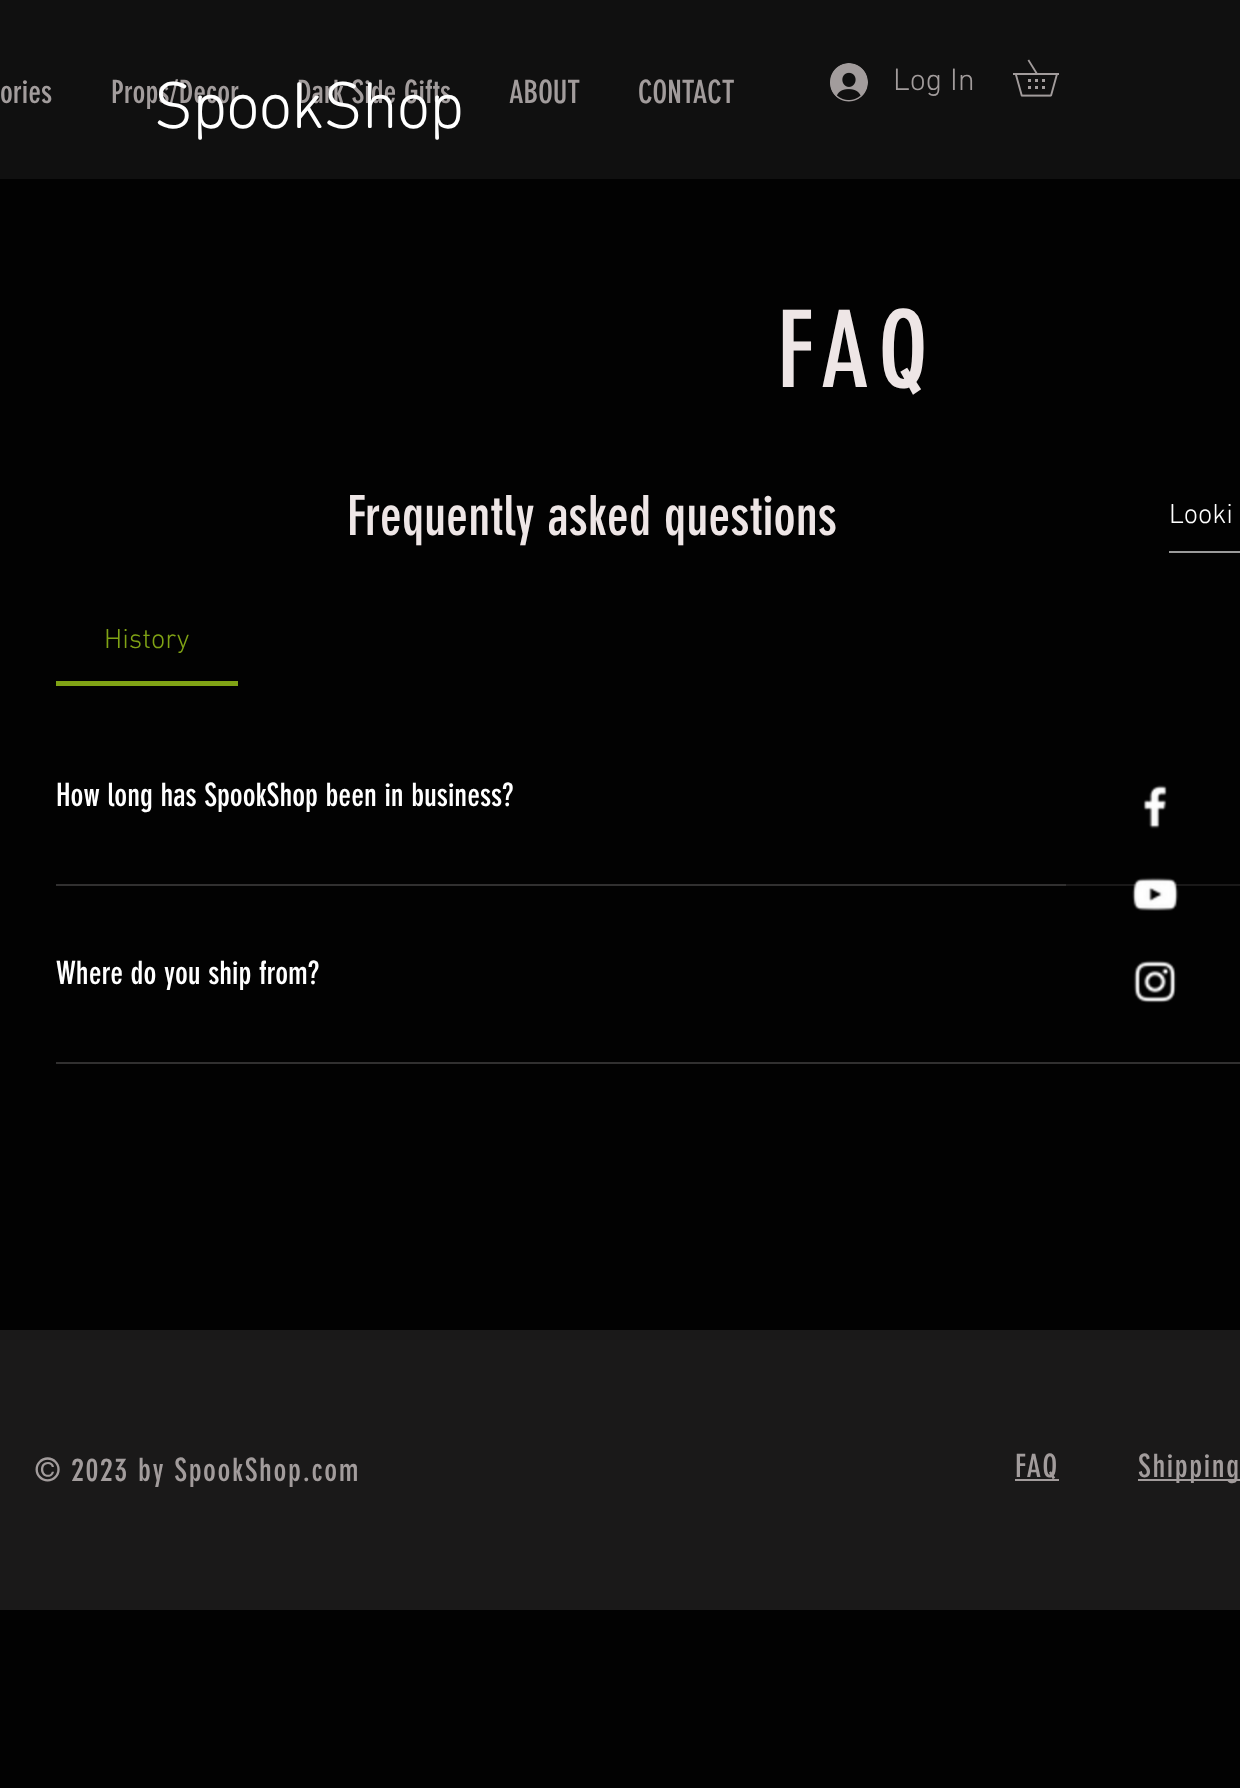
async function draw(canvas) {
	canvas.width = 1240;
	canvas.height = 1788;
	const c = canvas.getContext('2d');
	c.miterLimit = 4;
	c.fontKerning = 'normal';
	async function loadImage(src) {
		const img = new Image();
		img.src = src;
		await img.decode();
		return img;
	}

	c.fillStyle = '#020202';
	c.fillRect(0, 0, 1240, 1788);
	c.fillStyle = '#101010';
	c.fillRect(0, 0, 1240, 179);
	c.font = '31.5px "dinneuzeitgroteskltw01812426"';
	c.fillStyle = '#a29c9c';
	for (const [text, x, y] of [
		['ories', 0, 103],
		['Props/Decor', 111, 103],
		['Dark Side Gifts', 297, 103],
		['ABOUT', 509, 103],
		['CONTACT', 638, 103],
	]) {
		c.fillText(text, x, y);
	}
	c.drawImage(await loadImage('img1.png'), 830, 63, 38, 39);
	c.font = '300 31.5px "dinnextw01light"';
	c.fillText('Log In', 893, 90);
	c.drawImage(await loadImage('img2.png'), 1013, 59, 46, 38);
	c.font = 'bold 64.75px "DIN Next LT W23"';
	c.fillStyle = '#fff';
	c.fillText('SpookShop', 153, 128);
	c.letterSpacing = '10.5px';
	c.font = '105px "dinneuzeitgroteskltw01812426"';
	c.fillStyle = '#eee6e6';
	c.fillText('FAQ', 777, 387);
	c.letterSpacing = '0px';
	c.font = '54.25px "dinneuzeitgroteskltw01812426"';
	c.fillText('Frequently asked questions', 347, 535);
	c.fillStyle = '#9a9a9a';
	c.fillRect(1169, 551, 71, 2);
	c.font = '300 28px "dinnextw01light"';
	c.fillStyle = '#fff';
	c.fillText('Looki', 1169, 523);
	c.fillStyle = '#80a315';
	c.fillRect(56, 681, 182, 5);
	c.fillText('History', 104, 648);
	c.font = '31.5px "dinneuzeitgroteskltw01812426"';
	c.fillStyle = '#fff';
	c.fillText('How long has SpookShop been in business?', 56, 806);
	c.fillStyle = '#313030';
	c.fillRect(56, 884, 1010, 2);
	c.fillStyle = '#1a1919';
	c.fillRect(1066, 884, 174, 2);
	c.fillStyle = '#fff';
	c.fillText('Where do you ship from?', 56, 984);
	c.fillStyle = '#313030';
	c.fillRect(56, 1062, 1184, 2);
	c.drawImage(await loadImage('img3.png'), 1143, 785, 24, 44);
	c.drawImage(await loadImage('img4.png'), 1132, 877, 47, 34);
	c.drawImage(await loadImage('img5.png'), 1133, 960, 44, 43);
	c.fillStyle = '#1a1919';
	c.fillRect(0, 1330, 1240, 280);
	c.letterSpacing = '1.6px';
	c.fillStyle = '#a29c9c';
	c.fillText('© 2023 by SpookShop.com', 35, 1481);
	c.fillRect(1015, 1479, 44, 2);
	c.fillText('FAQ', 1015, 1477);
	c.fillRect(1138, 1479, 102, 2);
	c.fillText('Shipping', 1138, 1477);
}

draw(document.querySelector('canvas'));
